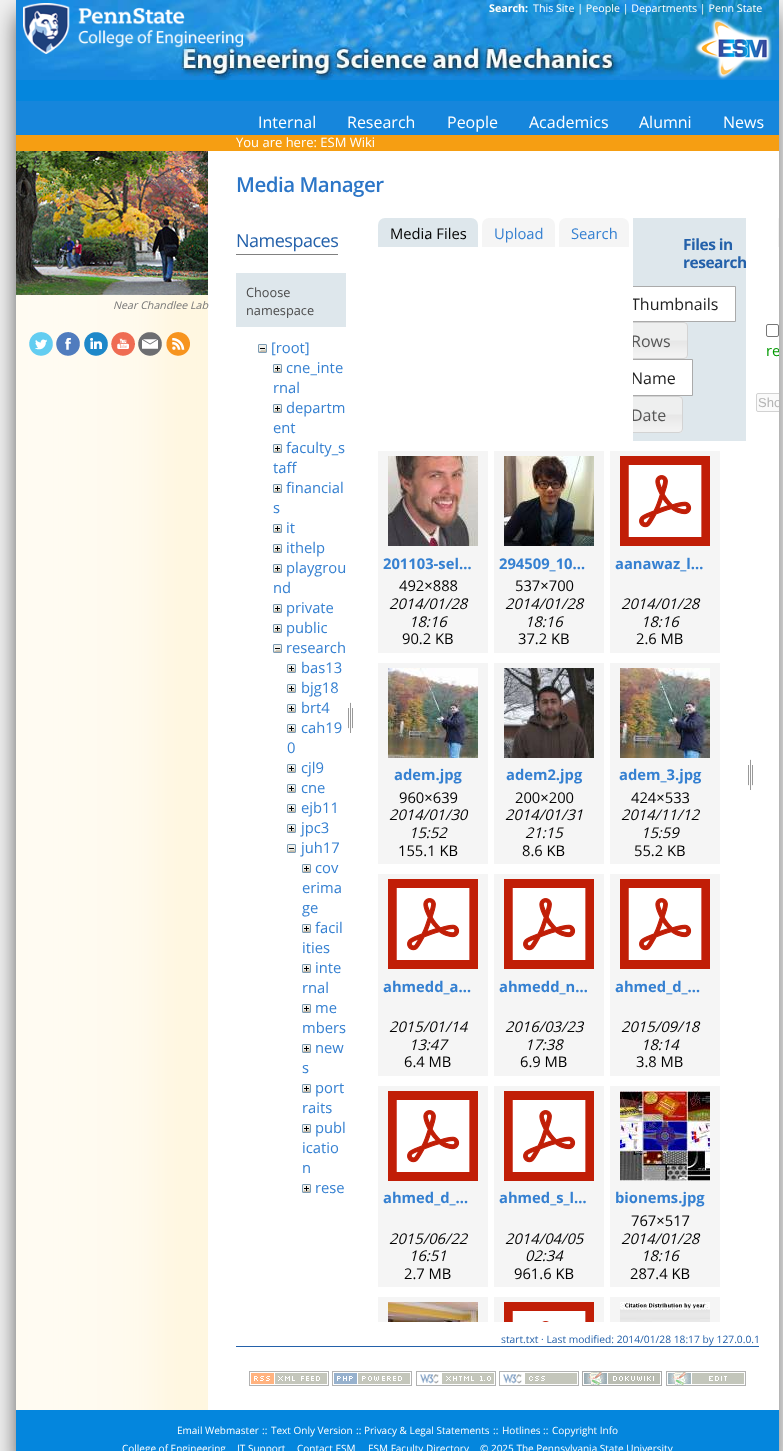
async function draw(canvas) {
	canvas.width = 783;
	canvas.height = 1451;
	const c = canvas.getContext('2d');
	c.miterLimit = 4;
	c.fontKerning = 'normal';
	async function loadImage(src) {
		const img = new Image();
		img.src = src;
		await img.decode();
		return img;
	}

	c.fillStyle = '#f1f1f1';
	c.fillRect(0, 0, 783, 1451);
	c.fillStyle = '#000000bf';
	c.filter = 'blur(12px)';
	c.beginPath();
	c.rect(19, 14, 755, 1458);
	c.fill();
	c.filter = 'none';
	c.fillStyle = '#fff';
	c.fillRect(208, 151, 571, 1259);
	c.fillStyle = '#0486dd';
	c.fillRect(16, 80, 763, 21);
	c.drawImage(await loadImage('img1.png'), 16, 0, 763, 80);
	c.drawImage(await loadImage('img2.png'), 23, 3, 220, 51);
	c.drawImage(await loadImage('img3.png'), 694, 17, 78, 63);
	c.font = 'bold 10.7px Open Sans';
	c.fillStyle = '#fff';
	c.fillText('Search:', 489, 12);
	c.font = '10.7px Open Sans';
	c.fillText('This Site | People | Departments | Penn State', 533, 12);
	c.fillStyle = '#1686dc';
	c.fillRect(16, 101, 763, 34);
	c.font = '16px Open Sans';
	c.fillStyle = '#fff';
	for (const [text, x, y] of [
		['Internal', 258, 128],
		['Research', 347, 128],
		['People', 447, 128],
		['Academics', 529, 128],
		['Alumni', 639, 128],
		['News', 723, 128],
	]) {
		c.fillText(text, x, y);
	}
	c.fillStyle = '#f69e12';
	c.fillRect(16, 135, 763, 16);
	c.font = '13px Open Sans';
	c.fillStyle = '#fff';
	c.fillText('You are here: ESM Wiki', 236, 147);
	c.drawImage(await loadImage('img4.png'), 16, 295, 192, 1115);
	c.drawImage(await loadImage('img5.png'), 16, 151, 192, 144);
	c.font = 'italic 10.7px Open Sans';
	c.fillStyle = '#777';
	c.fillText('Near Chandlee Lab', 113, 309);
	c.drawImage(await loadImage('img6.png'), 29, 332, 24, 24);
	c.drawImage(await loadImage('img7.png'), 56, 332, 24, 24);
	c.drawImage(await loadImage('img8.png'), 84, 332, 24, 24);
	c.drawImage(await loadImage('img9.png'), 111, 332, 24, 24);
	c.drawImage(await loadImage('img10.png'), 138, 332, 24, 24);
	c.drawImage(await loadImage('img11.png'), 166, 332, 24, 24);
	c.letterSpacing = '-0.5px';
	c.font = '600 20.5px Open Sans';
	c.fillStyle = '#2c76c7';
	c.fillText('Media Manager', 236, 192);
	c.fillStyle = '#808080';
	c.fillRect(236, 254, 102, 1);
	c.font = '18px Open Sans';
	c.fillStyle = '#2461aa';
	c.fillText('Namespaces', 236, 247);
	c.fillStyle = '#dee7ec';
	c.fillRect(236, 273, 110, 54);
	c.letterSpacing = '0px';
	c.font = '12.75px Open Sans';
	c.fillStyle = '#4c4c4c';
	c.fillText('Choose', 246, 297);
	c.fillText('namespace', 246, 315);
	c.drawImage(await loadImage('img12.png'), 258, 344, 9, 9);
	c.font = '14.75px Open Sans';
	c.fillStyle = '#3580d1';
	for (const [text, x, y] of [
		['[root]', 271, 353],
		['cne_inte', 286, 373],
		['rnal', 273, 393],
	]) {
		c.fillText(text, x, y);
	}
	c.drawImage(await loadImage('img13.png'), 273, 364, 9, 9);
	c.fillText('departm', 286, 413);
	c.fillText('ent', 273, 433);
	c.drawImage(await loadImage('img13.png'), 273, 404, 9, 9);
	c.fillText('faculty_s', 286, 453);
	c.fillText('taff', 273, 473);
	c.drawImage(await loadImage('img13.png'), 273, 444, 9, 9);
	c.fillText('financial', 286, 493);
	c.fillText('s', 273, 513);
	c.drawImage(await loadImage('img13.png'), 273, 484, 9, 9);
	c.drawImage(await loadImage('img13.png'), 273, 524, 9, 9);
	c.fillText('it', 286, 533);
	c.drawImage(await loadImage('img13.png'), 273, 544, 9, 9);
	for (const [text, x, y] of [
		['ithelp', 286, 553],
		['playgrou', 286, 573],
		['nd', 273, 593],
	]) {
		c.fillText(text, x, y);
	}
	c.drawImage(await loadImage('img13.png'), 273, 564, 9, 9);
	c.drawImage(await loadImage('img13.png'), 273, 604, 9, 9);
	c.fillText('private', 286, 613);
	c.drawImage(await loadImage('img13.png'), 273, 624, 9, 9);
	c.fillText('public', 286, 633);
	c.drawImage(await loadImage('img12.png'), 273, 644, 9, 9);
	c.fillText('research', 286, 653);
	c.drawImage(await loadImage('img13.png'), 287, 664, 9, 9);
	c.fillText('bas13', 301, 673);
	c.drawImage(await loadImage('img13.png'), 287, 684, 9, 9);
	c.fillText('bjg18', 301, 693);
	c.drawImage(await loadImage('img13.png'), 287, 704, 9, 9);
	for (const [text, x, y] of [
		['brt4', 301, 713],
		['cah19', 301, 733],
		['0', 287, 753],
	]) {
		c.fillText(text, x, y);
	}
	c.drawImage(await loadImage('img13.png'), 287, 724, 9, 9);
	c.drawImage(await loadImage('img13.png'), 287, 764, 9, 9);
	c.fillText('cjl9', 301, 773);
	c.drawImage(await loadImage('img13.png'), 287, 784, 9, 9);
	c.fillText('cne', 301, 793);
	c.drawImage(await loadImage('img13.png'), 287, 804, 9, 9);
	c.fillText('ejb11', 301, 813);
	c.drawImage(await loadImage('img13.png'), 287, 824, 9, 9);
	c.fillText('jpc3', 301, 833);
	c.drawImage(await loadImage('img12.png'), 287, 844, 9, 9);
	c.fillText('juh17', 301, 853);
	c.drawImage(await loadImage('img13.png'), 302, 864, 9, 9);
	for (const [text, x, y] of [
		['cov', 315, 873],
		['erima', 302, 893],
		['ge', 302, 913],
		['facil', 315, 933],
		['ities', 302, 953],
	]) {
		c.fillText(text, x, y);
	}
	c.drawImage(await loadImage('img13.png'), 302, 924, 9, 9);
	c.fillText('inte', 315, 973);
	c.fillText('rnal', 302, 993);
	c.drawImage(await loadImage('img13.png'), 302, 964, 9, 9);
	c.drawImage(await loadImage('img13.png'), 302, 1004, 9, 9);
	c.fillText('me', 315, 1013);
	c.fillText('mbers', 302, 1033);
	c.drawImage(await loadImage('img13.png'), 302, 1044, 9, 9);
	for (const [text, x, y] of [
		['new', 315, 1053],
		['s', 302, 1073],
		['port', 315, 1093],
		['raits', 302, 1113],
	]) {
		c.fillText(text, x, y);
	}
	c.drawImage(await loadImage('img13.png'), 302, 1084, 9, 9);
	for (const [text, x, y] of [
		['publ', 315, 1133],
		['icatio', 302, 1153],
		['n', 302, 1173],
	]) {
		c.fillText(text, x, y);
	}
	c.drawImage(await loadImage('img13.png'), 302, 1124, 9, 9);
	c.drawImage(await loadImage('img13.png'), 302, 1184, 9, 9);
	c.fillText('rese', 315, 1193);
	c.drawImage(await loadImage('img14.png'), 348, 702, 5, 31);
	c.fillStyle = '#dee7ec';
	c.beginPath();
	c.roundRect(378, 218, 100, 29, [7, 7, 0, 0]);
	c.fill();
	c.fillStyle = '#000';
	c.fillText('Media Files', 390, 239);
	c.fillStyle = '#f5f5f5';
	c.beginPath();
	c.roundRect(482, 218, 73, 29, [7, 7, 0, 0]);
	c.fill();
	c.fillStyle = '#3580d1';
	c.fillText('Upload', 494, 239);
	c.fillStyle = '#f5f5f5';
	c.beginPath();
	c.roundRect(559, 218, 70, 29, [7, 7, 0, 0]);
	c.fill();
	c.fillStyle = '#3580d1';
	c.fillText('Search', 571, 239);
	c.fillStyle = '#dee7ec';
	c.fillRect(633, 218, 113, 223);
	c.letterSpacing = '-0.5px';
	c.font = 'bold 15.5px Open Sans';
	c.fillStyle = '#2461aa';
	c.fillText('Files in', 683, 250);
	c.fillText('research', 683, 268);
	c.fillStyle = '#fff';
	c.fillRect(633, 287, 102, 34);
	c.save();
	c.beginPath();
	c.rect(633, 218, 113, 223);
	c.clip();
	c.beginPath();
	c.roundRect(614.5, 286.5, 121, 35, [3.5, 0, 0, 3.5]);
	c.strokeStyle = '#aaa';
	c.stroke();
	c.letterSpacing = '0px';
	c.font = '16px Open Sans';
	c.fillStyle = '#212121';
	c.fillText('Thumbnails', 631, 310);
	c.restore();
	c.drawImage(await loadImage('img15.png'), 633, 322, 55, 37);
	c.save();
	c.beginPath();
	c.rect(633, 218, 113, 223);
	c.clip();
	c.beginPath();
	c.roundRect(614.5, 322.5, 73, 36, [0, 3.5, 3.5, 0]);
	c.strokeStyle = '#d3d3d3';
	c.stroke();
	c.letterSpacing = '0px';
	c.font = '16px Open Sans';
	c.fillStyle = '#555';
	c.fillText('Rows', 631, 347);
	c.restore();
	c.fillRect(633, 360, 59, 35);
	c.save();
	c.beginPath();
	c.rect(633, 218, 113, 223);
	c.clip();
	c.beginPath();
	c.roundRect(614.5, 359.5, 78, 36, [3.5, 0, 0, 3.5]);
	c.strokeStyle = '#aaa';
	c.stroke();
	c.letterSpacing = '0px';
	c.font = '16px Open Sans';
	c.fillStyle = '#212121';
	c.fillText('Name', 631, 384);
	c.restore();
	c.drawImage(await loadImage('img16.png'), 633, 396, 50, 37);
	c.save();
	c.beginPath();
	c.rect(633, 218, 113, 223);
	c.clip();
	c.beginPath();
	c.roundRect(614.5, 396.5, 68, 36, [0, 3.5, 3.5, 0]);
	c.strokeStyle = '#d3d3d3';
	c.stroke();
	c.letterSpacing = '0px';
	c.font = '16px Open Sans';
	c.fillStyle = '#555';
	c.fillText('Date', 631, 421);
	c.restore();
	c.fillStyle = '#f5f5f5';
	c.fillRect(378, 451, 110, 202);
	c.drawImage(await loadImage('img17.png'), 388, 456, 90, 90);
	c.letterSpacing = '0px';
	c.font = 'bold 14.75px Open Sans';
	c.fillStyle = '#3580d1';
	c.fillText('201103-sel…', 383, 569);
	c.font = '14.75px Open Sans';
	c.fillStyle = '#000';
	c.fillText('492×888', 399, 591);
	c.font = 'italic 14.75px Open Sans';
	c.fillText('2014/01/28', 389, 609);
	c.fillText('18:16', 409, 627);
	c.font = '14.75px Open Sans';
	c.fillText('90.2 KB', 402, 644);
	c.fillStyle = '#f5f5f5';
	c.fillRect(494, 451, 110, 202);
	c.drawImage(await loadImage('img18.png'), 504, 456, 90, 90);
	c.font = 'bold 14.75px Open Sans';
	c.fillStyle = '#3580d1';
	c.fillText('294509_10…', 499, 569);
	c.font = '14.75px Open Sans';
	c.fillStyle = '#000';
	c.fillText('537×700', 515, 591);
	c.font = 'italic 14.75px Open Sans';
	c.fillText('2014/01/28', 505, 609);
	c.fillText('18:16', 525, 627);
	c.font = '14.75px Open Sans';
	c.fillText('37.2 KB', 518, 644);
	c.fillStyle = '#f5f5f5';
	c.fillRect(610, 451, 110, 202);
	c.drawImage(await loadImage('img19.png'), 620, 456, 90, 90);
	c.font = 'bold 14.75px Open Sans';
	c.fillStyle = '#3580d1';
	c.fillText('aanawaz_l…', 615, 569);
	c.font = 'italic 14.75px Open Sans';
	c.fillStyle = '#000';
	c.fillText('2014/01/28', 621, 609);
	c.fillText('18:16', 641, 627);
	c.font = '14.75px Open Sans';
	c.fillText('2.6 MB', 636, 644);
	c.fillStyle = '#f5f5f5';
	c.fillRect(378, 663, 110, 201);
	c.drawImage(await loadImage('img20.png'), 388, 668, 90, 90);
	c.font = 'bold 14.75px Open Sans';
	c.fillStyle = '#3580d1';
	c.fillText('adem.jpg', 394, 780);
	c.font = '14.75px Open Sans';
	c.fillStyle = '#000';
	c.fillText('960×639', 399, 803);
	c.font = 'italic 14.75px Open Sans';
	c.fillText('2014/01/30', 389, 820);
	c.fillText('15:52', 409, 838);
	c.font = '14.75px Open Sans';
	c.fillText('155.1 KB', 398, 856);
	c.fillStyle = '#f5f5f5';
	c.fillRect(494, 663, 110, 201);
	c.drawImage(await loadImage('img21.png'), 504, 668, 90, 90);
	c.font = 'bold 14.75px Open Sans';
	c.fillStyle = '#3580d1';
	c.fillText('adem2.jpg', 506, 780);
	c.font = '14.75px Open Sans';
	c.fillStyle = '#000';
	c.fillText('200×200', 515, 803);
	c.font = 'italic 14.75px Open Sans';
	c.fillText('2014/01/31', 505, 820);
	c.fillText('21:15', 525, 838);
	c.font = '14.75px Open Sans';
	c.fillText('8.6 KB', 522, 856);
	c.fillStyle = '#f5f5f5';
	c.fillRect(610, 663, 110, 201);
	c.drawImage(await loadImage('img22.png'), 620, 668, 90, 90);
	c.font = 'bold 14.75px Open Sans';
	c.fillStyle = '#3580d1';
	c.fillText('adem_3.jpg', 619, 780);
	c.font = '14.75px Open Sans';
	c.fillStyle = '#000';
	c.fillText('424×533', 631, 803);
	c.font = 'italic 14.75px Open Sans';
	c.fillText('2014/11/12', 621, 820);
	c.fillText('15:59', 641, 838);
	c.font = '14.75px Open Sans';
	c.fillText('55.2 KB', 634, 856);
	c.fillStyle = '#f5f5f5';
	c.fillRect(378, 874, 110, 202);
	c.drawImage(await loadImage('img19.png'), 388, 879, 90, 90);
	c.font = 'bold 14.75px Open Sans';
	c.fillStyle = '#3580d1';
	c.fillText('ahmedd_a…', 383, 992);
	c.font = 'italic 14.75px Open Sans';
	c.fillStyle = '#000';
	c.fillText('2015/01/14', 389, 1032);
	c.fillText('13:47', 409, 1050);
	c.font = '14.75px Open Sans';
	c.fillText('6.4 MB', 404, 1067);
	c.fillStyle = '#f5f5f5';
	c.fillRect(494, 874, 110, 202);
	c.drawImage(await loadImage('img19.png'), 504, 879, 90, 90);
	c.font = 'bold 14.75px Open Sans';
	c.fillStyle = '#3580d1';
	c.fillText('ahmedd_n…', 499, 992);
	c.font = 'italic 14.75px Open Sans';
	c.fillStyle = '#000';
	c.fillText('2016/03/23', 505, 1032);
	c.fillText('17:38', 525, 1050);
	c.font = '14.75px Open Sans';
	c.fillText('6.9 MB', 520, 1067);
	c.fillStyle = '#f5f5f5';
	c.fillRect(610, 874, 110, 202);
	c.drawImage(await loadImage('img19.png'), 620, 879, 90, 90);
	c.font = 'bold 14.75px Open Sans';
	c.fillStyle = '#3580d1';
	c.fillText('ahmed_d_…', 615, 992);
	c.font = 'italic 14.75px Open Sans';
	c.fillStyle = '#000';
	c.fillText('2015/09/18', 621, 1032);
	c.fillText('18:14', 641, 1050);
	c.font = '14.75px Open Sans';
	c.fillText('3.8 MB', 636, 1067);
	c.fillStyle = '#f5f5f5';
	c.fillRect(378, 1086, 110, 201);
	c.drawImage(await loadImage('img19.png'), 388, 1091, 90, 90);
	c.font = 'bold 14.75px Open Sans';
	c.fillStyle = '#3580d1';
	c.fillText('ahmed_d_…', 383, 1203);
	c.font = 'italic 14.75px Open Sans';
	c.fillStyle = '#000';
	c.fillText('2015/06/22', 389, 1244);
	c.fillText('16:51', 409, 1261);
	c.font = '14.75px Open Sans';
	c.fillText('2.7 MB', 404, 1279);
	c.fillStyle = '#f5f5f5';
	c.fillRect(494, 1086, 110, 201);
	c.drawImage(await loadImage('img19.png'), 504, 1091, 90, 90);
	c.font = 'bold 14.75px Open Sans';
	c.fillStyle = '#3580d1';
	c.fillText('ahmed_s_l…', 499, 1203);
	c.font = 'italic 14.75px Open Sans';
	c.fillStyle = '#000';
	c.fillText('2014/04/05', 505, 1244);
	c.fillText('02:34', 525, 1261);
	c.font = '14.75px Open Sans';
	c.fillText('961.6 KB', 514, 1279);
	c.fillStyle = '#f5f5f5';
	c.fillRect(610, 1086, 110, 201);
	c.drawImage(await loadImage('img23.png'), 620, 1091, 90, 90);
	c.font = 'bold 14.75px Open Sans';
	c.fillStyle = '#3580d1';
	c.fillText('bionems.jpg', 615, 1203);
	c.font = '14.75px Open Sans';
	c.fillStyle = '#000';
	c.fillText('767×517', 631, 1226);
	c.font = 'italic 14.75px Open Sans';
	c.fillText('2014/01/28', 621, 1244);
	c.fillText('18:16', 641, 1261);
	c.font = '14.75px Open Sans';
	c.fillText('287.4 KB', 630, 1279);
	c.fillStyle = '#f5f5f5';
	c.fillRect(378, 1297, 110, 25);
	c.drawImage(await loadImage('img24.png'), 388, 1302, 90, 20);
	c.fillRect(494, 1297, 110, 25);
	c.drawImage(await loadImage('img25.png'), 504, 1302, 90, 20);
	c.fillRect(610, 1297, 110, 25);
	c.drawImage(await loadImage('img26.png'), 620, 1302, 90, 20);
	c.drawImage(await loadImage('img14.png'), 748, 759, 5, 31);
	c.beginPath();
	c.roundRect(778, 218, 1, 29, [7, 0, 0, 0]);
	c.fill();
	c.beginPath();
	c.roundRect(766.5, 324.5, 12, 12, 1.5);
	c.strokeStyle = '#767676';
	c.stroke();
	c.save();
	c.beginPath();
	c.rect(756, 320, 23, 870);
	c.clip();
	c.fillStyle = '#090';
	c.fillText('re', 766, 356);
	c.restore();
	c.fillStyle = '#fafafa';
	c.beginPath();
	c.roundRect(756, 393, 23, 19, [2, 0, 0, 2]);
	c.fill();
	c.save();
	c.beginPath();
	c.rect(756, 320, 23, 870);
	c.clip();
	c.beginPath();
	c.roundRect(756.5, 393.5, 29, 18, 1.5);
	c.strokeStyle = '#d2d2d2';
	c.stroke();
	c.font = '13px Liberation Sans';
	c.fillStyle = '#b4b4b4';
	c.fillText('Sho', 758, 407);
	c.restore();
	c.font = '10.25px Open Sans';
	c.fillStyle = '#2461aa';
	c.fillText('start.txt · Last modified: 2014/01/28 18:17 by 127.0.0.1', 501, 1343);
	c.fillRect(236, 1346, 523, 1);
	c.drawImage(await loadImage('img27.png'), 249, 1371, 80, 15);
	c.drawImage(await loadImage('img28.png'), 332, 1371, 80, 15);
	c.drawImage(await loadImage('img29.png'), 416, 1371, 80, 15);
	c.drawImage(await loadImage('img30.png'), 499, 1371, 80, 15);
	c.drawImage(await loadImage('img31.png'), 582, 1371, 80, 15);
	c.drawImage(await loadImage('img32.png'), 666, 1371, 80, 15);
	c.fillStyle = '#0486dd';
	c.fillRect(16, 1410, 763, 41);
	c.font = '10px Open Sans';
	c.fillStyle = '#fff';
	for (const [text, x, y] of [
		['Email Webmaster', 177, 1434],
		['::', 262, 1434],
		['Text Only Version', 271, 1434],
		['::', 356, 1434],
		['Privacy & Legal Statements', 364, 1434],
		['::', 493, 1434],
		['Hotlines', 502, 1434],
		['::', 543, 1434],
		['Copyright Info', 552, 1434],
		['College of Engineering', 122, 1452],
		['IT Support', 237, 1452],
		['Contact ESM', 297, 1452],
		['ESM Faculty Directory', 368, 1452],
		['© 2025 The Pennsylvania State University', 480, 1452],
	]) {
		c.fillText(text, x, y);
	}
}

draw(document.querySelector('canvas'));
